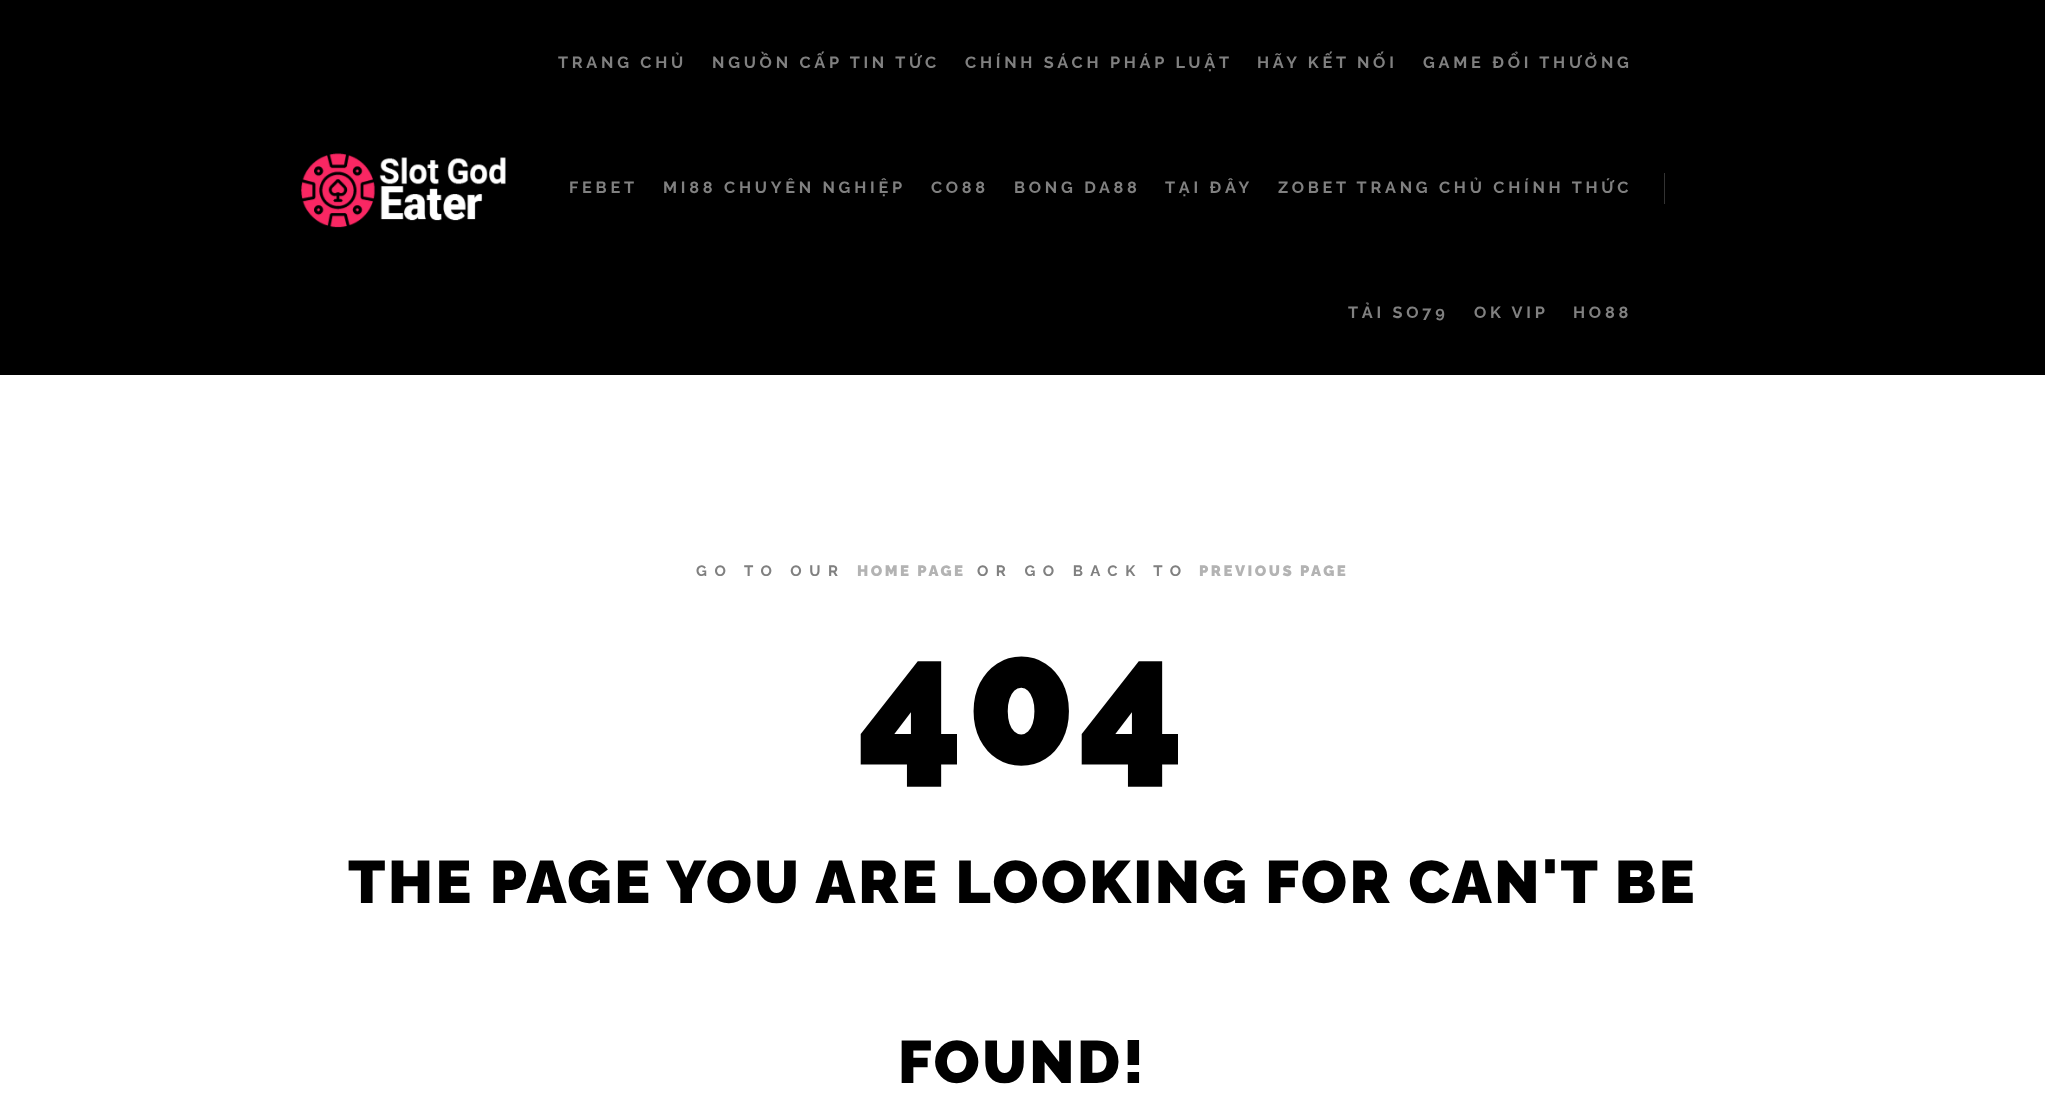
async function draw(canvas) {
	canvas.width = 2045;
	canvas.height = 1098;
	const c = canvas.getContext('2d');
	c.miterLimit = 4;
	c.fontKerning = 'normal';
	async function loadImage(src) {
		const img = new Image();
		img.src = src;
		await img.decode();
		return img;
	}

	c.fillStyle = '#fff';
	c.fillRect(0, 0, 2045, 1098);
	c.fillStyle = '#000';
	c.fillRect(0, 0, 2045, 375);
	c.drawImage(await loadImage('img1.png'), 301, 153, 205, 75);
	c.letterSpacing = '3.75px';
	c.font = 'bold 16.25px Raleway';
	c.fillStyle = '#808080';
	for (const [text, x, y] of [
		['TRANG CHỦ', 558, 68],
		['NGUỒN CẤP TIN TỨC', 712, 68],
		['CHÍNH SÁCH PHÁP LUẬT', 965, 68],
		['HÃY KẾT NỐI', 1257, 68],
		['GAME ĐỔI THƯỞNG', 1423, 68],
		['FEBET', 569, 193],
		['MI88 CHUYÊN NGHIỆP', 663, 193],
		['CO88', 931, 193],
		['BONG DA88', 1014, 193],
		['TẠI ĐÂY', 1165, 193],
		['ZOBET TRANG CHỦ CHÍNH THỨC', 1278, 193],
		['TẢI SO79', 1348, 318],
		['OK VIP', 1474, 318],
		['HO88', 1573, 318],
	]) {
		c.fillText(text, x, y);
	}
	c.fillStyle = '#333';
	c.fillRect(1664, 173, 1, 31);
	c.letterSpacing = '7.5px';
	c.font = 'bold 15px Raleway';
	c.fillStyle = '#808080';
	c.fillText('GO TO OUR', 696, 576);
	c.letterSpacing = '2.5px';
	c.font = '900 15px Raleway';
	c.fillStyle = '#b3b3b3';
	c.fillText('HOME PAGE', 857, 576);
	c.letterSpacing = '7.5px';
	c.font = 'bold 15px Raleway';
	c.fillStyle = '#808080';
	c.fillText('OR GO BACK TO', 977, 576);
	c.letterSpacing = '2.5px';
	c.font = '900 15px Raleway';
	c.fillStyle = '#b3b3b3';
	c.fillText('PREVIOUS PAGE', 1199, 576);
	c.font = '900 180px Raleway';
	c.fillStyle = '#000';
	c.fillText('404', 858, 764);
	c.font = '900 60px Raleway';
	c.fillText('THE PAGE YOU ARE LOOKING FOR CAN\'T BE', 348, 903);
	c.fillText('FOUND!', 898, 1083);
}

draw(document.querySelector('canvas'));
